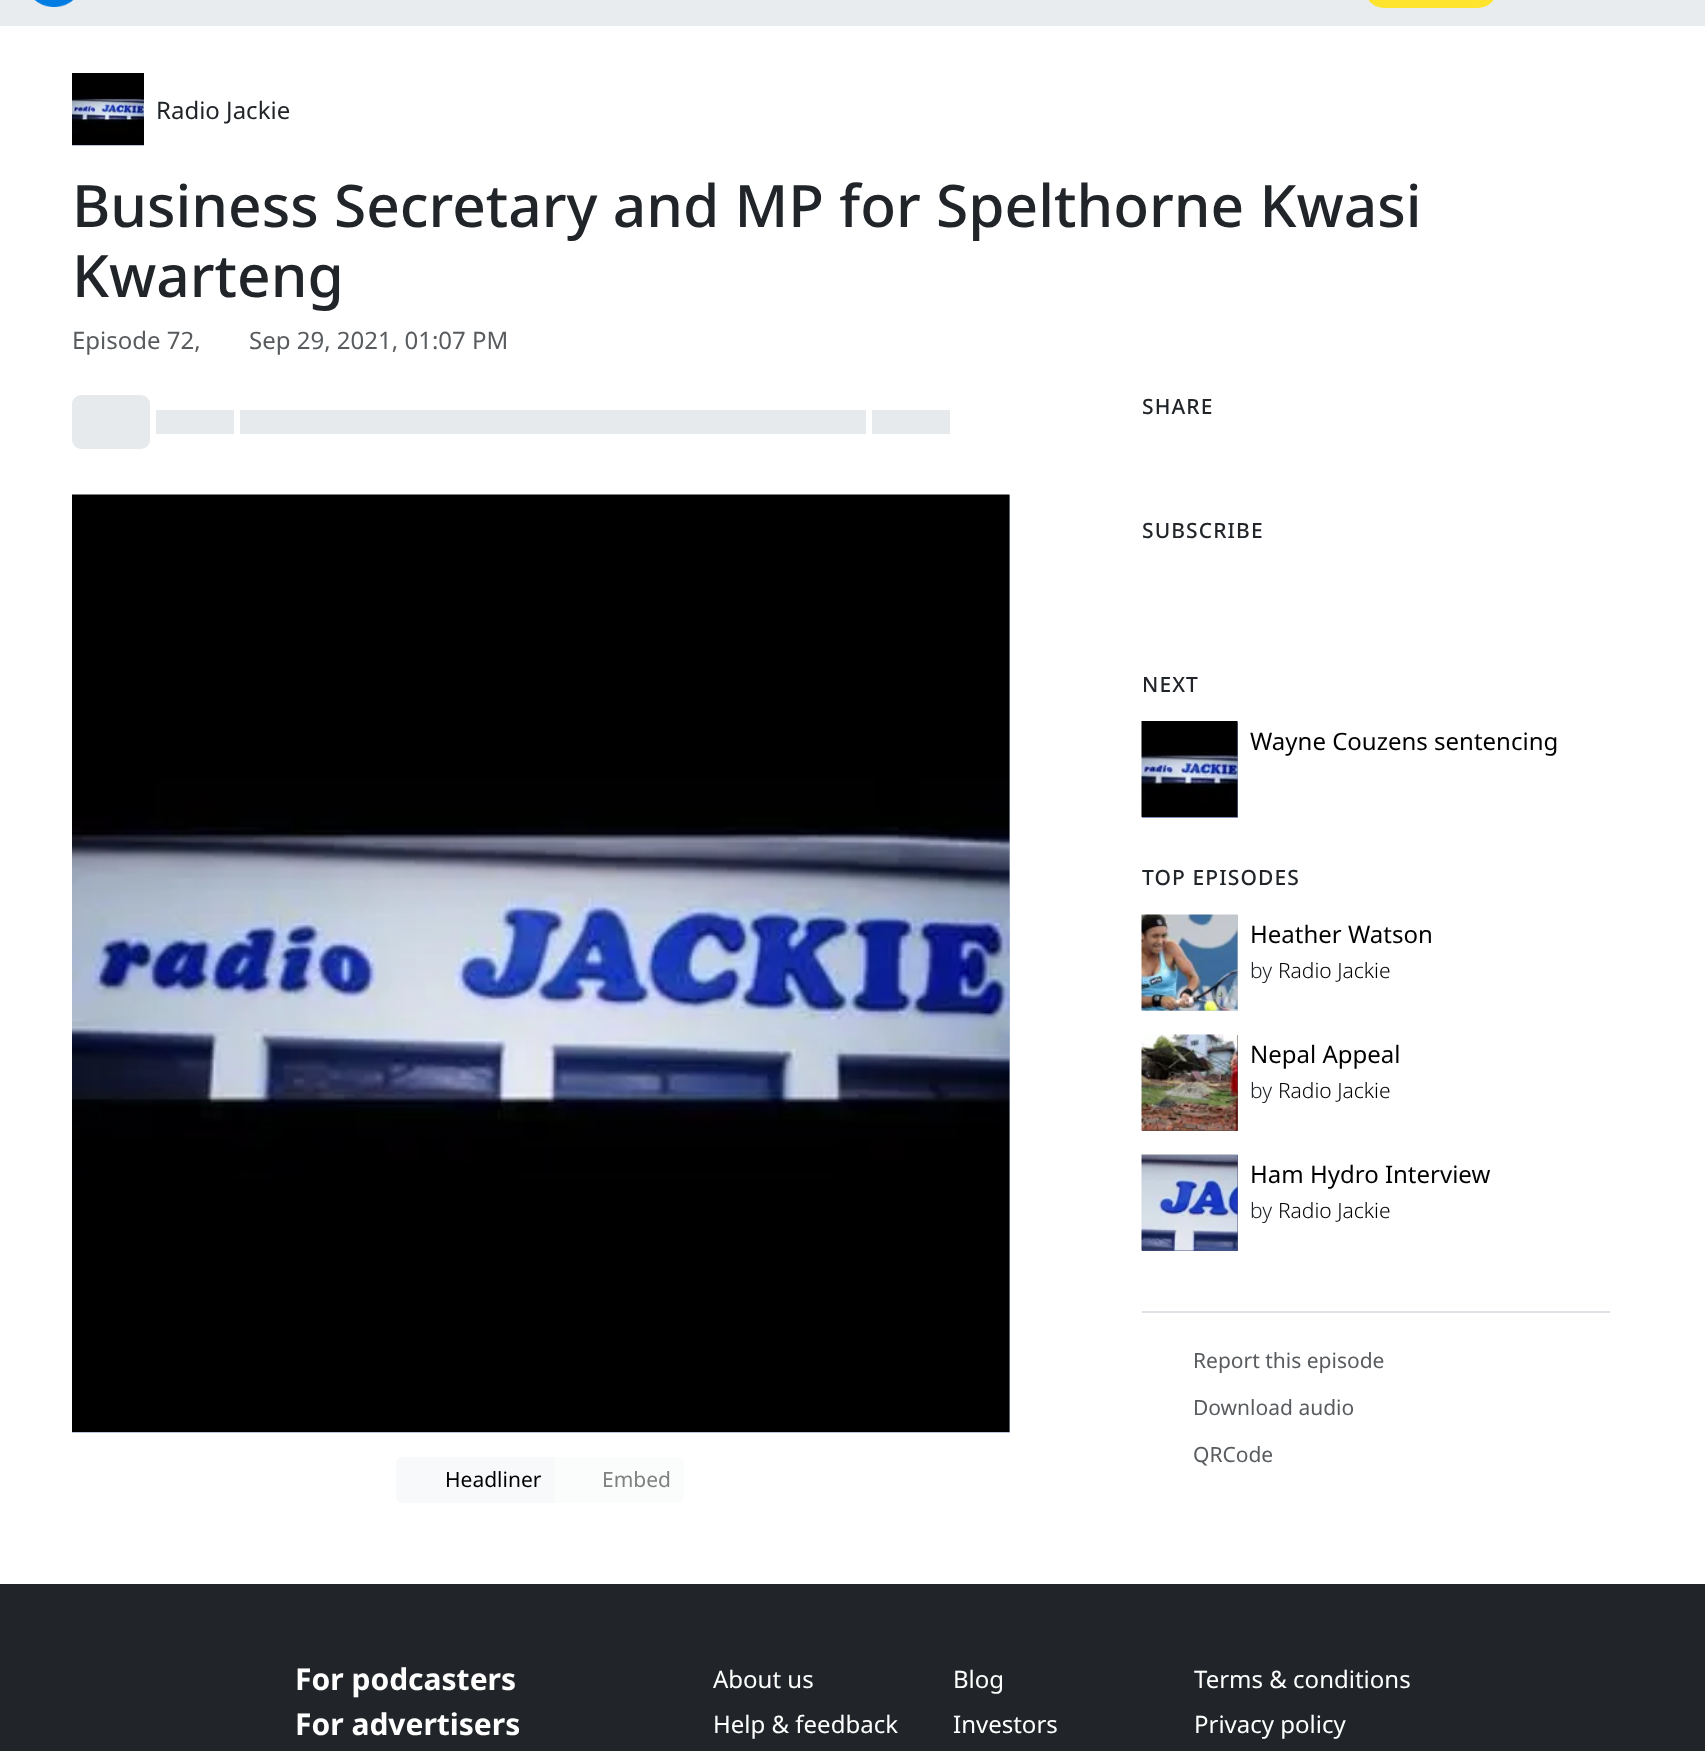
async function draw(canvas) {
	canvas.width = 1705;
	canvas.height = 1751;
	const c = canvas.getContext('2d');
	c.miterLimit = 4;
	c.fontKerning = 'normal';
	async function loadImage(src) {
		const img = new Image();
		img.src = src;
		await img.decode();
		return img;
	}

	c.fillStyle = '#fff';
	c.fillRect(0, 0, 1705, 1751);
	c.fillStyle = '#e9ecef';
	c.fillRect(0, 0, 1705, 26);
	c.drawImage(await loadImage('img1.png'), 34, 0, 40, 7);
	c.fillStyle = '#ffe42d';
	c.beginPath();
	c.roundRect(1365, -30, 132, 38, 30);
	c.fill();
	c.drawImage(await loadImage('img2.png'), 72, 73, 72, 72);
	c.fillStyle = '#b7c2d7';
	c.fillRect(72, 145, 72, 1);
	c.font = '24px Noto Sans';
	c.fillStyle = '#212529';
	c.fillText('Radio Jackie', 156, 119);
	c.font = '500 58.6px Noto Sans';
	c.fillText('Business Secretary and MP for Spelthorne Kwasi', 72, 227);
	c.fillText('Kwarteng', 72, 297);
	c.font = '24px Noto Sans';
	c.fillStyle = '#595c5f';
	c.fillText('Episode 72,', 72, 349);
	c.fillText('Sep 29, 2021, 01:07 PM', 249, 349);
	c.letterSpacing = '1.1px';
	c.font = '500 21px Noto Sans';
	c.fillStyle = '#212529';
	for (const [text, x, y] of [
		['SHARE', 1142, 414],
		['SUBSCRIBE', 1142, 538],
		['NEXT', 1142, 692],
	]) {
		c.fillText(text, x, y);
	}
	c.fillStyle = '#7c8db4';
	c.fillRect(1142, 722, 96, 96);
	c.drawImage(await loadImage('img3.png'), 1141, 721, 97, 96);
	c.letterSpacing = '0px';
	c.font = '24px Noto Sans';
	c.fillStyle = '#000';
	c.fillText('Wayne Couzens sentencing', 1250, 750);
	c.letterSpacing = '1.1px';
	c.font = '500 21px Noto Sans';
	c.fillStyle = '#212529';
	c.fillText('TOP EPISODES', 1142, 885);
	c.fillStyle = '#c5c9cf';
	c.fillRect(1142, 915, 96, 96);
	c.drawImage(await loadImage('img4.png'), 1141, 914, 97, 97);
	c.letterSpacing = '0px';
	c.font = '24px Noto Sans';
	c.fillStyle = '#000';
	c.fillText('Heather Watson', 1250, 943);
	c.font = '300 21px Noto Sans';
	c.fillStyle = '#212529';
	c.fillText('by', 1250, 978);
	c.fillStyle = '#000';
	c.fillText('Radio Jackie', 1278, 978);
	c.fillStyle = '#5d4d3e';
	c.fillRect(1142, 1035, 96, 96);
	c.drawImage(await loadImage('img5.png'), 1141, 1034, 97, 97);
	c.font = '24px Noto Sans';
	c.fillStyle = '#000';
	c.fillText('Nepal Appeal', 1250, 1063);
	c.font = '300 21px Noto Sans';
	c.fillStyle = '#212529';
	c.fillText('by', 1250, 1098);
	c.fillStyle = '#000';
	c.fillText('Radio Jackie', 1278, 1098);
	c.fillStyle = '#4c5583';
	c.fillRect(1142, 1155, 96, 96);
	c.drawImage(await loadImage('img6.png'), 1141, 1154, 97, 97);
	c.font = '24px Noto Sans';
	c.fillStyle = '#000';
	c.fillText('Ham Hydro Interview', 1250, 1183);
	c.font = '300 21px Noto Sans';
	c.fillStyle = '#212529';
	c.fillText('by', 1250, 1218);
	c.fillStyle = '#000';
	c.fillText('Radio Jackie', 1278, 1218);
	c.fillStyle = '#dee2e6';
	c.fillRect(1142, 1311, 468, 2);
	c.font = '21px Noto Sans';
	c.fillStyle = '#595c5f';
	for (const [text, x, y] of [
		['Report this episode', 1193, 1368],
		['Download audio', 1193, 1415],
		['QRCode', 1193, 1462],
	]) {
		c.fillText(text, x, y);
	}
	c.fillStyle = '#e7eaed';
	c.beginPath();
	c.roundRect(72, 395, 78, 54, 9);
	c.fill();
	for (const [x, y, w, h, color] of [
		[156, 410, 78, 24, '#e7eaed'],
		[240, 410, 626, 24, '#e7eaed'],
		[872, 410, 78, 24, '#e7eaed'],
		[72, 495, 938, 938, '#b9c4db'],
	]) {
		c.fillStyle = color;
		c.fillRect(x, y, w, h);
	}
	c.drawImage(await loadImage('img7.png'), 72, 494, 938, 938);
	c.fillStyle = '#f8f9fa';
	c.beginPath();
	c.roundRect(396, 1457, 159, 46, [6, 0, 0, 6]);
	c.fill();
	c.fillStyle = '#000';
	c.fillText('Headliner', 445, 1487);
	c.fillStyle = '#f8f9fa80';
	c.beginPath();
	c.roundRect(554, 1457, 130, 46, [0, 6, 6, 0]);
	c.fill();
	c.fillStyle = '#808080';
	c.fillText('Embed', 602, 1487);
	c.fillStyle = '#212529';
	c.fillRect(1, 1586, 1704, 165);
	c.strokeStyle = '#212529';
	c.lineWidth = 2;
	c.strokeRect(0, 1585, 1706, 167);
	c.font = 'bold 30px Noto Sans';
	c.fillStyle = '#fff';
	c.fillText('For podcasters', 295, 1690);
	c.fillText('For advertisers', 295, 1735);
	c.font = '24px Noto Sans';
	for (const [text, x, y] of [
		['About us', 713, 1688],
		['Help & feedback', 713, 1733],
		['Blog', 953, 1688],
		['Investors', 953, 1733],
		['Terms & conditions', 1194, 1688],
		['Privacy policy', 1194, 1733],
	]) {
		c.fillText(text, x, y);
	}
}

draw(document.querySelector('canvas'));
